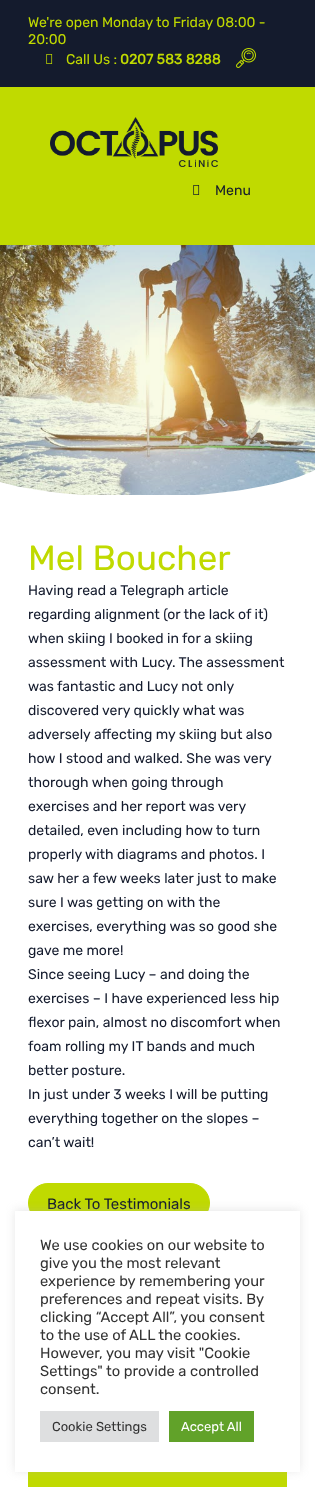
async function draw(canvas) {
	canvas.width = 315;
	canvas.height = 1487;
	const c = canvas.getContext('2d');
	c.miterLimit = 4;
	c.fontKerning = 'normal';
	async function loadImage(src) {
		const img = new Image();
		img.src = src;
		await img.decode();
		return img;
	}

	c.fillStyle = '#fff';
	c.fillRect(0, 0, 315, 1487);
	c.fillStyle = '#141b2d';
	c.fillRect(0, 0, 315, 87);
	c.font = '14px Rubik';
	c.fillStyle = '#c0da00';
	c.fillText('We\'re open Monday to Friday 08:00 -', 28, 27);
	c.fillText('20:00', 28, 44);
	c.drawImage(await loadImage('img1.png'), 46, 54, 7, 10);
	c.fillText('Call Us :', 66, 64);
	c.font = 'bold 14px Rubik';
	c.fillText('0207 583 8288', 120, 64);
	c.drawImage(await loadImage('img2.png'), 236, 48, 20, 20);
	c.fillRect(0, 87, 315, 158);
	c.drawImage(await loadImage('img3.png'), 50, 117, 168, 50);
	c.drawImage(await loadImage('img4.png'), 193, 185, 7, 10);
	c.font = '14px Rubik';
	c.fillStyle = '#141b2d';
	c.fillText('Menu', 215, 195);
	c.drawImage(await loadImage('img5.png'), 0, 245, 315, 250);
	c.save();
	c.beginPath();
	c.rect(0, 470, 315, 25);
	c.clip();
	c.fillStyle = '#fff';
	c.beginPath();
	c.moveTo(0, 497);
	c.lineTo(141, 497);
	c.bezierCurveTo(85, 497, 36, 492, 0, 482);
	c.closePath();
	c.fill();
	c.beginPath();
	c.moveTo(315, 497);
	c.lineTo(315, 470);
	c.bezierCurveTo(283, 486, 217, 497, 141, 497);
	c.closePath();
	c.fill();
	c.restore();
	c.font = '35px Rubik';
	c.fillStyle = '#c0da00';
	c.fillText('Mel Boucher', 28, 570);
	c.font = '14px Rubik';
	c.fillStyle = '#141b2d';
	for (const [text, x, y] of [
		['Having read a Telegraph article', 28, 595],
		['regarding alignment (or the lack of it)', 28, 619],
		['when skiing I booked in for a skiing', 28, 643],
		['assessment with Lucy. The assessment', 28, 667],
		['was fantastic and Lucy not only', 28, 691],
		['discovered very quickly what was', 28, 715],
		['adversely affecting my skiing but also', 28, 739],
		['how I stood and walked. She was very', 28, 763],
		['thorough when going through', 28, 787],
		['exercises and her report was very', 28, 811],
		['detailed, even including how to turn', 28, 835],
		['properly with diagrams and photos. I', 28, 859],
		['saw her a few weeks later just to make', 28, 883],
		['sure I was getting on with the', 28, 907],
		['exercises, everything was so good she', 28, 931],
		['gave me more!', 28, 955],
		['Since seeing Lucy – and doing the', 28, 979],
		['exercises – I have experienced less hip', 28, 1003],
		['flexor pain, almost no discomfort when', 28, 1027],
		['foam rolling my IT bands and much', 28, 1051],
		['better posture.', 28, 1075],
		['In just under 3 weeks I will be putting', 28, 1099],
		['everything together on the slopes –', 28, 1123],
		['can’t wait!', 28, 1147],
	]) {
		c.fillText(text, x, y);
	}
	c.fillStyle = '#c0da00';
	c.beginPath();
	c.roundRect(28.5, 1183.5, 181, 39, 19.5);
	c.fill();
	c.strokeStyle = '#c0da00';
	c.stroke();
	c.font = '15px Rubik';
	c.fillStyle = '#141b2d';
	c.fillText('Back To Testimonials', 47, 1209);
	c.fillStyle = '#c0da00';
	c.fillRect(28, 1472, 259, 15);
	c.fillStyle = '#acabab4d';
	c.filter = 'blur(5px)';
	c.beginPath();
	c.rect(15, 1210, 285, 261);
	c.fill();
	c.filter = 'none';
	c.fillStyle = '#fff';
	c.fillRect(15, 1211, 285, 261);
	c.font = '14.7px Rubik';
	c.fillStyle = '#333';
	for (const [text, x, y] of [
		['We use cookies on our website to', 40, 1250],
		['give you the most relevant', 40, 1268],
		['experience by remembering your', 40, 1286],
		['preferences and repeat visits. By', 40, 1304],
		['clicking “Accept All”, you consent', 40, 1322],
		['to the use of ALL the cookies.', 40, 1340],
		['However, you may visit "Cookie', 40, 1358],
		['Settings" to provide a controlled', 40, 1376],
		['consent.', 40, 1394],
	]) {
		c.fillText(text, x, y);
	}
	c.fillStyle = '#dedfe0';
	c.fillRect(40, 1411, 119, 31);
	c.font = '13px Rubik';
	c.fillStyle = '#333';
	c.fillText('Cookie Settings', 52, 1431);
	c.fillStyle = '#61a229';
	c.fillRect(169, 1411, 85, 31);
	c.fillStyle = '#fff';
	c.fillText('Accept All', 181, 1431);
}

draw(document.querySelector('canvas'));
